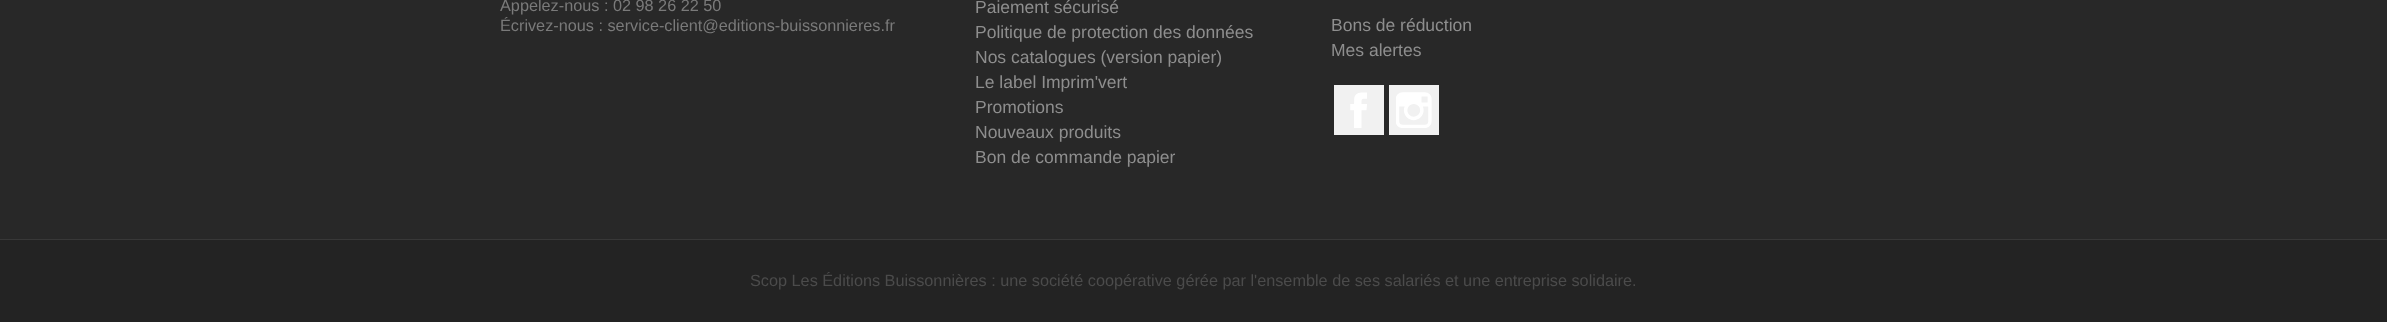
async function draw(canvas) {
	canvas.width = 2387;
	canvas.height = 322;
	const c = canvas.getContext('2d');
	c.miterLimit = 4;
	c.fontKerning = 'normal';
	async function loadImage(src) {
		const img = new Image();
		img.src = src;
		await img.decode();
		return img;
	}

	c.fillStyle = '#282828';
	c.fillRect(0, 0, 2387, 322);
	c.font = '16.25px Liberation Sans';
	c.fillStyle = '#7a7a7a';
	c.fillText('Appelez-nous : 02 98 26 22 50', 500, 11);
	c.fillText('Écrivez-nous : service-client@editions-buissonnieres.fr', 500, 31);
	c.font = '17.5px Liberation Sans';
	c.fillStyle = '#8e8e8e';
	for (const [text, x, y] of [
		['Paiement sécurisé', 975, 13],
		['Politique de protection des données', 975, 38],
		['Nos catalogues (version papier)', 975, 63],
		['Le label Imprim\'vert', 975, 88],
		['Promotions', 975, 113],
		['Nouveaux produits', 975, 138],
		['Bon de commande papier', 975, 163],
		['Bons de réduction', 1331, 31],
		['Mes alertes', 1331, 56],
	]) {
		c.fillText(text, x, y);
	}
	c.fillStyle = '#f1f1f1';
	c.fillRect(1334, 85, 50, 50);
	c.drawImage(await loadImage('img1.png'), 1350, 92, 17, 36);
	c.fillRect(1389, 85, 50, 50);
	c.drawImage(await loadImage('img2.png'), 1396, 92, 36, 36);
	c.fillStyle = '#232323';
	c.fillRect(0, 240, 2387, 82);
	c.fillStyle = '#383838';
	c.fillRect(0, 239, 2387, 1);
	c.font = '16.25px Liberation Sans';
	c.fillStyle = '#4b4b4b';
	c.fillText('Scop Les Éditions Buissonnières : une société coopérative gérée par l\'ensemble de ses salariés et une entreprise solidaire.', 750, 286);
}

draw(document.querySelector('canvas'));
